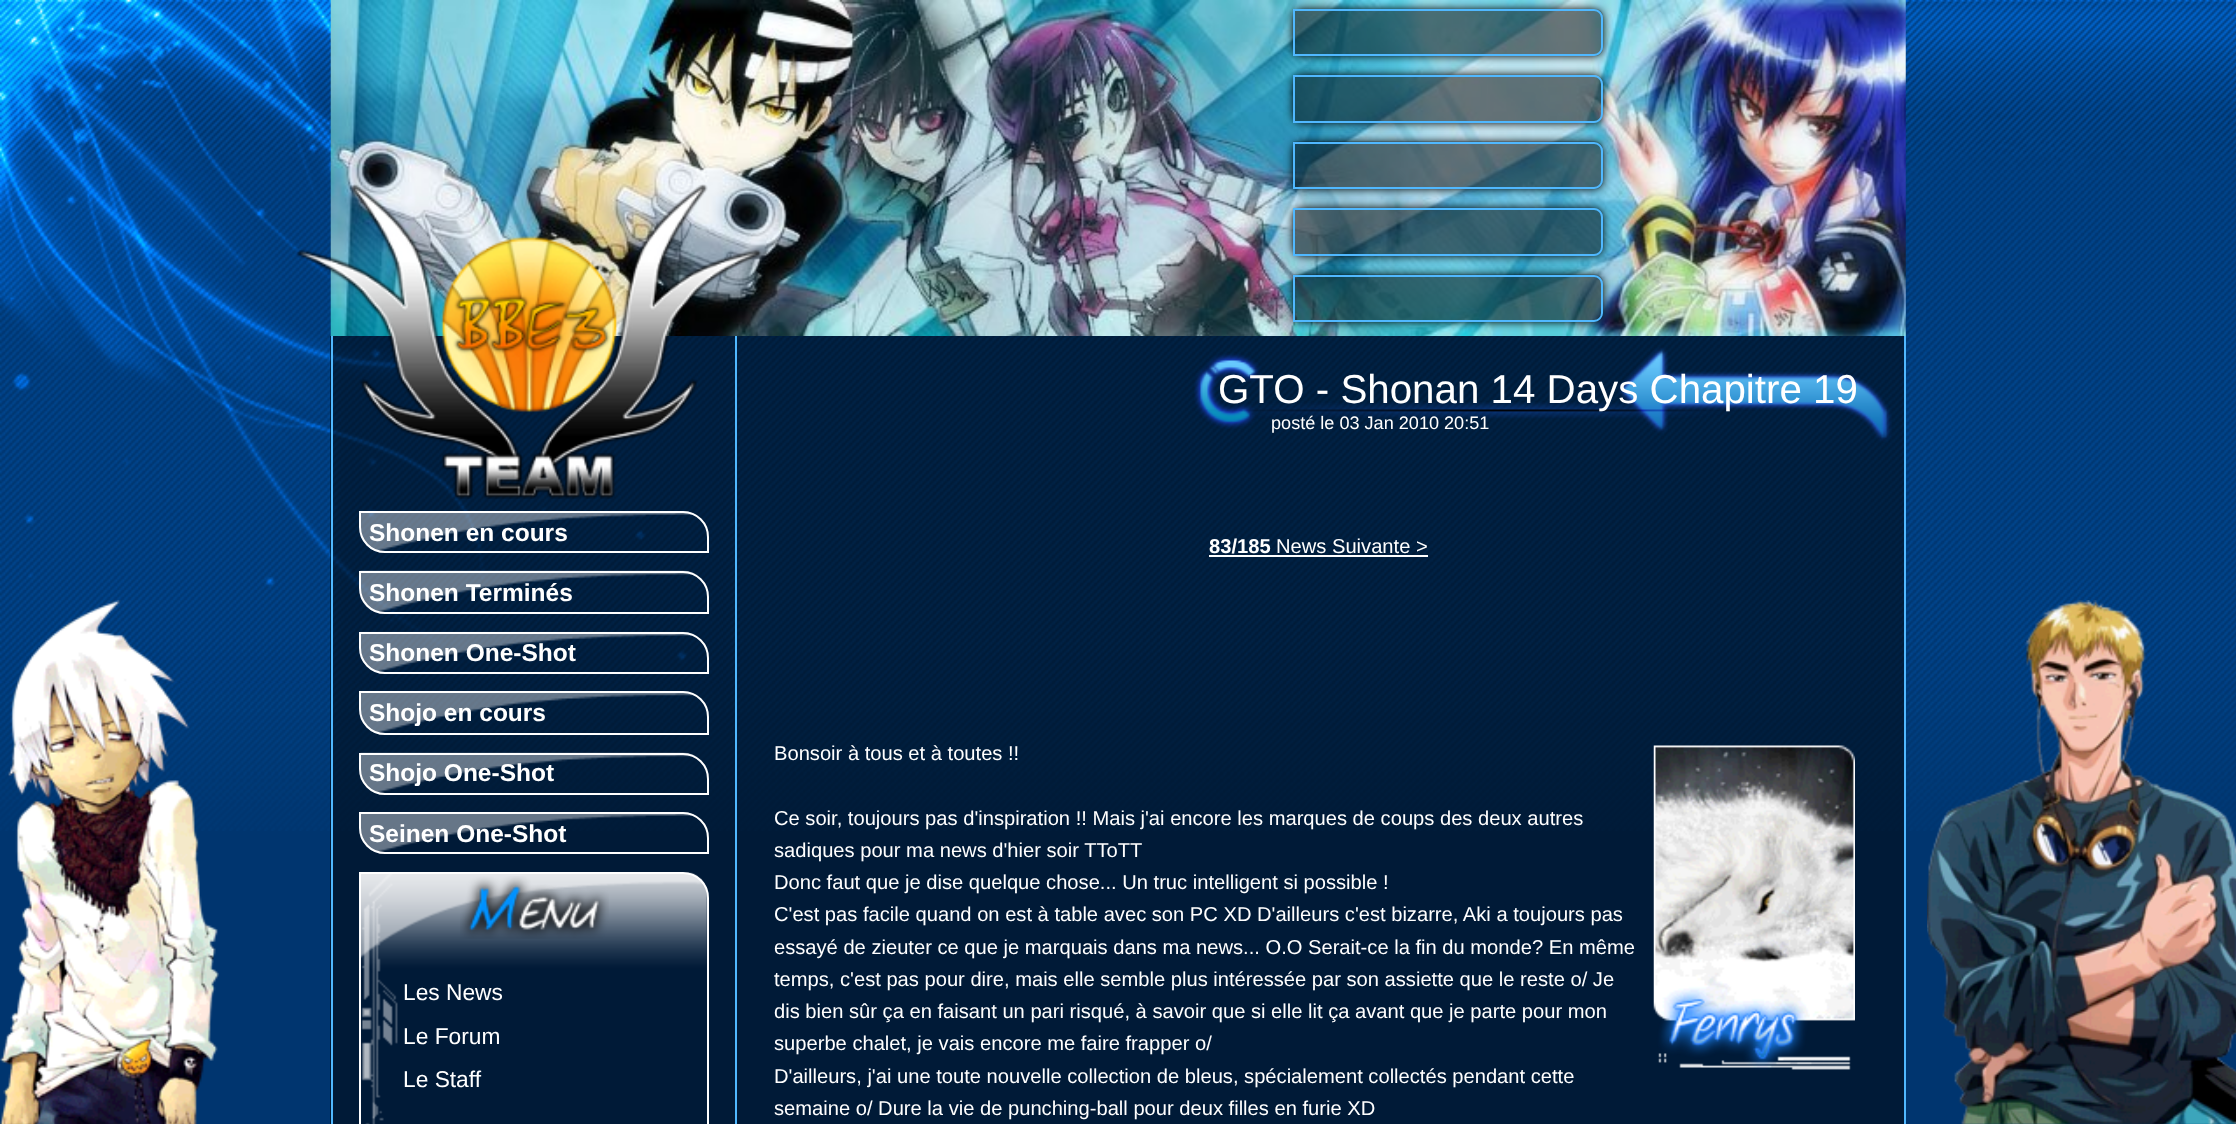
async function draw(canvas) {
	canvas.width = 2236;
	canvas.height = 1124;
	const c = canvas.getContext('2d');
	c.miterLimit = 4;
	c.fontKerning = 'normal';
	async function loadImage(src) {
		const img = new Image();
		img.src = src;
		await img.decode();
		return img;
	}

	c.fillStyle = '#00356f';
	c.fillRect(0, 0, 2236, 1124);
	c.drawImage(await loadImage('img1.png'), 0, 0, 2236, 831);
	c.drawImage(await loadImage('img2.png'), 0, 0, 723, 683);
	c.drawImage(await loadImage('img3.png'), 330, 0, 1576, 336);
	c.save();
	c.beginPath();
	c.moveTo(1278, 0);
	c.lineTo(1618, 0);
	c.lineTo(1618, 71);
	c.lineTo(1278, 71);
	c.closePath();
	c.moveTo(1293, 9);
	c.lineTo(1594, 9);
	c.bezierCurveTo(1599, 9, 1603, 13, 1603, 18);
	c.lineTo(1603, 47);
	c.bezierCurveTo(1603, 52, 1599, 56, 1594, 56);
	c.lineTo(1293, 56);
	c.closePath();
	c.clip('evenodd');
	c.fillStyle = '#000';
	c.filter = 'blur(4.5px)';
	c.beginPath();
	c.roundRect(1293, 9, 310, 47, 9);
	c.fill();
	c.filter = 'none';
	c.restore();
	c.drawImage(await loadImage('img4.png'), 1292, 9, 312, 47);
	c.beginPath();
	c.roundRect(1294, 10, 308, 45, [0, 8, 8, 0]);
	c.strokeStyle = '#50b8ff';
	c.lineWidth = 2;
	c.stroke();
	c.save();
	c.beginPath();
	c.moveTo(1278, 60);
	c.lineTo(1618, 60);
	c.lineTo(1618, 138);
	c.lineTo(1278, 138);
	c.closePath();
	c.moveTo(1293, 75);
	c.lineTo(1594, 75);
	c.bezierCurveTo(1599, 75, 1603, 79, 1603, 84);
	c.lineTo(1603, 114);
	c.bezierCurveTo(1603, 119, 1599, 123, 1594, 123);
	c.lineTo(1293, 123);
	c.closePath();
	c.clip('evenodd');
	c.fillStyle = '#000';
	c.filter = 'blur(4.5px)';
	c.beginPath();
	c.roundRect(1293, 75, 310, 48, 9);
	c.fill();
	c.filter = 'none';
	c.restore();
	c.drawImage(await loadImage('img5.png'), 1292, 74, 312, 49);
	c.beginPath();
	c.roundRect(1294, 76, 308, 46, [0, 8, 8, 0]);
	c.stroke();
	c.save();
	c.beginPath();
	c.moveTo(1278, 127);
	c.lineTo(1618, 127);
	c.lineTo(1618, 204);
	c.lineTo(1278, 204);
	c.closePath();
	c.moveTo(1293, 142);
	c.lineTo(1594, 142);
	c.bezierCurveTo(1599, 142, 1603, 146, 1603, 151);
	c.lineTo(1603, 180);
	c.bezierCurveTo(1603, 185, 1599, 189, 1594, 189);
	c.lineTo(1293, 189);
	c.closePath();
	c.clip('evenodd');
	c.fillStyle = '#000';
	c.filter = 'blur(4.5px)';
	c.beginPath();
	c.roundRect(1293, 142, 310, 47, 9);
	c.fill();
	c.filter = 'none';
	c.restore();
	c.drawImage(await loadImage('img6.png'), 1292, 141, 312, 48);
	c.beginPath();
	c.roundRect(1294, 143, 308, 45, [0, 8, 8, 0]);
	c.stroke();
	c.save();
	c.beginPath();
	c.moveTo(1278, 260);
	c.lineTo(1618, 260);
	c.lineTo(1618, 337);
	c.lineTo(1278, 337);
	c.closePath();
	c.moveTo(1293, 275);
	c.lineTo(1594, 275);
	c.bezierCurveTo(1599, 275, 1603, 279, 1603, 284);
	c.lineTo(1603, 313);
	c.bezierCurveTo(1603, 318, 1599, 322, 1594, 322);
	c.lineTo(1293, 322);
	c.closePath();
	c.clip('evenodd');
	c.fillStyle = '#000';
	c.filter = 'blur(4.5px)';
	c.beginPath();
	c.roundRect(1293, 275, 310, 47, 9);
	c.fill();
	c.filter = 'none';
	c.restore();
	c.fillStyle = '#00000080';
	c.fillRect(330, 336, 1574, 788);
	c.fillStyle = '#50b8ff';
	c.fillRect(331, 336, 2, 788);
	c.beginPath();
	c.moveTo(332, 336);
	c.lineTo(737, 336);
	c.lineTo(737, 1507);
	c.bezierCurveTo(737, 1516, 729, 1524, 719, 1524);
	c.lineTo(332, 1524);
	c.closePath();
	c.moveTo(332, 336);
	c.lineTo(735, 336);
	c.lineTo(735, 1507);
	c.bezierCurveTo(735, 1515, 728, 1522, 719, 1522);
	c.lineTo(332, 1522);
	c.closePath();
	c.fill('evenodd');
	c.drawImage(await loadImage('img7.png'), 296, 184, 466, 315);
	c.save();
	c.beginPath();
	c.moveTo(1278, 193);
	c.lineTo(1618, 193);
	c.lineTo(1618, 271);
	c.lineTo(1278, 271);
	c.closePath();
	c.moveTo(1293, 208);
	c.lineTo(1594, 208);
	c.bezierCurveTo(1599, 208, 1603, 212, 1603, 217);
	c.lineTo(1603, 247);
	c.bezierCurveTo(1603, 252, 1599, 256, 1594, 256);
	c.lineTo(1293, 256);
	c.closePath();
	c.clip('evenodd');
	c.fillStyle = '#000';
	c.filter = 'blur(4.5px)';
	c.beginPath();
	c.roundRect(1293, 208, 310, 48, 9);
	c.fill();
	c.filter = 'none';
	c.restore();
	c.drawImage(await loadImage('img8.png'), 1292, 207, 312, 49);
	c.beginPath();
	c.roundRect(1294, 209, 308, 46, [0, 8, 8, 0]);
	c.stroke();
	c.drawImage(await loadImage('img9.png'), 1292, 274, 311, 48);
	c.beginPath();
	c.roundRect(1294, 276, 308, 45, [0, 8, 8, 0]);
	c.stroke();
	c.fillRect(1904, 336, 2, 788);
	c.drawImage(await loadImage('img10.png'), 360, 511, 336, 41);
	c.beginPath();
	c.roundRect(360, 512, 348, 40, [0, 25, 0, 25]);
	c.strokeStyle = '#fff';
	c.stroke();
	c.font = 'bold 24.5px Liberation Sans';
	c.fillStyle = '#fff';
	c.fillText('Shonen en cours', 369, 541);
	c.drawImage(await loadImage('img11.png'), 360, 570, 337, 43);
	c.beginPath();
	c.roundRect(360, 572, 348, 41, [0, 25, 0, 25]);
	c.stroke();
	c.fillText('Shonen Terminés', 369, 601);
	c.drawImage(await loadImage('img12.png'), 360, 631, 336, 42);
	c.beginPath();
	c.roundRect(360, 633, 348, 40, [0, 25, 0, 25]);
	c.stroke();
	c.fillText('Shonen One-Shot', 369, 661);
	c.drawImage(await loadImage('img13.png'), 360, 691, 337, 43);
	c.beginPath();
	c.roundRect(360, 692, 348, 42, [0, 25, 0, 25]);
	c.stroke();
	c.fillText('Shojo en cours', 369, 721);
	c.drawImage(await loadImage('img14.png'), 360, 752, 337, 41);
	c.beginPath();
	c.roundRect(360, 754, 348, 40, [0, 25, 0, 25]);
	c.stroke();
	c.fillText('Shojo One-Shot', 369, 781);
	c.drawImage(await loadImage('img15.png'), 360, 812, 336, 41);
	c.beginPath();
	c.roundRect(360, 813, 348, 40, [0, 25, 0, 25]);
	c.stroke();
	c.fillText('Seinen One-Shot', 369, 842);
	c.drawImage(await loadImage('img16.png'), 361, 872, 347, 252);
	c.beginPath();
	c.moveTo(360, 873);
	c.lineTo(683, 873);
	c.bezierCurveTo(697, 873, 708, 884, 708, 898);
	c.lineTo(708, 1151);
	c.lineTo(385, 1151);
	c.bezierCurveTo(371, 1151, 360, 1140, 360, 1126);
	c.closePath();
	c.stroke();
	c.drawImage(await loadImage('img17.png'), 460, 876, 149, 63);
	c.font = '22.75px Liberation Sans';
	for (const [text, x, y] of [
		['Les News', 403, 1000],
		['Le Forum', 403, 1044],
		['Le Staff', 403, 1087],
	]) {
		c.fillText(text, x, y);
	}
	c.drawImage(await loadImage('img18.png'), 1194, 347, 698, 95);
	c.font = '40.3px Liberation Sans';
	c.fillText('GTO - Shonan 14 Days Chapitre 19', 1218, 403);
	c.font = '18.1px Liberation Sans';
	c.fillText('posté le 03 Jan 2010 20:51', 1271, 429);
	c.font = 'bold 20.15px Liberation Sans';
	c.fillText('83/185', 1209, 553);
	c.fillRect(1209, 555, 219, 2);
	c.font = '20.15px Liberation Sans';
	c.fillText('News Suivante >', 1276, 553);
	c.fillText('Bonsoir à tous et à toutes !!', 774, 760);
	c.drawImage(await loadImage('img19.png'), 1653, 745, 202, 325);
	for (const [text, x, y] of [
		['Ce soir, toujours pas d\'inspiration !! Mais j\'ai encore les marques de coups des deux autres', 774, 825],
		['sadiques pour ma news d\'hier soir TToTT', 774, 857],
		['Donc faut que je dise quelque chose... Un truc intelligent si possible !', 774, 889],
		['C\'est pas facile quand on est à table avec son PC XD D\'ailleurs c\'est bizarre, Aki a toujours pas', 774, 921],
		['essayé de zieuter ce que je marquais dans ma news... O.O Serait-ce la fin du monde? En même', 774, 954],
		['temps, c\'est pas pour dire, mais elle semble plus intéressée par son assiette que le reste o/ Je', 774, 986],
		['dis bien sûr ça en faisant un pari risqué, à savoir que si elle lit ça avant que je parte pour mon', 774, 1018],
		['superbe chalet, je vais encore me faire frapper o/', 774, 1050],
		['D\'ailleurs, j\'ai une toute nouvelle collection de bleus, spécialement collectés pendant cette', 774, 1083],
		['semaine o/ Dure la vie de punching-ball pour deux filles en furie XD', 774, 1115],
	]) {
		c.fillText(text, x, y);
	}
	c.drawImage(await loadImage('img20.png'), 0, 600, 219, 524);
	c.drawImage(await loadImage('img21.png'), 1927, 600, 309, 524);
}

draw(document.querySelector('canvas'));
